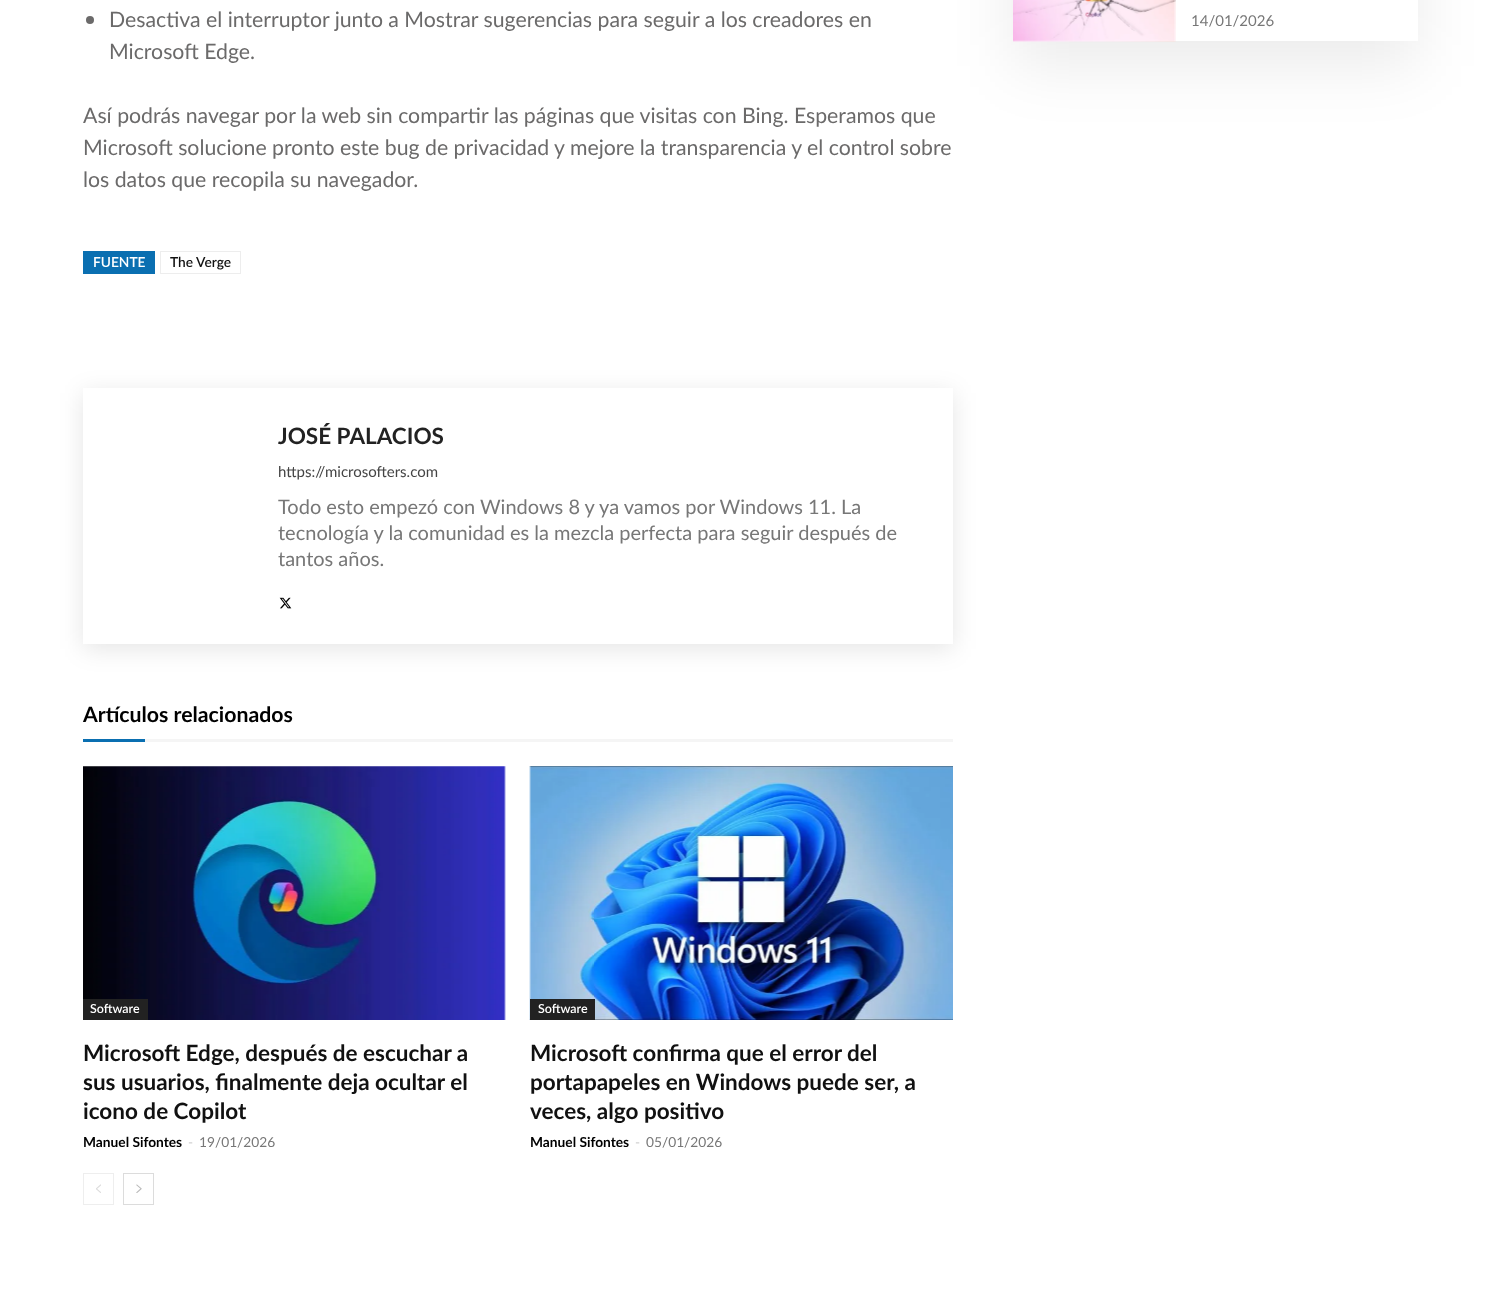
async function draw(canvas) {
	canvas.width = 1499;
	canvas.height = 1301;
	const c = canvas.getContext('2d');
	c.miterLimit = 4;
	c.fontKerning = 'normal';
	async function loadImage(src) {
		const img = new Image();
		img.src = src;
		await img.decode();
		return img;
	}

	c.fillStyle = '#fff';
	c.fillRect(0, 0, 1499, 1301);
	c.fillStyle = '#6b6a6a';
	c.beginPath();
	c.arc(90, 20, 4, 0, 2 * Math.PI);
	c.fill();
	c.font = '21.25px Lato';
	for (const [text, x, y] of [
		['Desactiva el interruptor junto a Mostrar sugerencias para seguir a los creadores en', 109, 27],
		['Microsoft Edge.', 109, 59],
		['Así podrás navegar por la web sin compartir las páginas que visitas con Bing. Esperamos que', 83, 123],
		['Microsoft solucione pronto este bug de privacidad y mejore la transparencia y el control sobre', 83, 155],
		['los datos que recopila su navegador.', 83, 187],
	]) {
		c.fillText(text, x, y);
	}
	c.fillStyle = '#0a6fb1';
	c.fillRect(83, 251, 72, 23);
	c.font = '600 13.75px Lato';
	c.fillStyle = '#fff';
	c.fillText('FUENTE', 93, 267);
	c.strokeStyle = '#ededed';
	c.strokeRect(160.5, 251.5, 80, 22);
	c.fillStyle = '#111';
	c.fillText('The Verge', 170, 267);
	c.save();
	c.beginPath();
	c.moveTo(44, 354);
	c.lineTo(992, 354);
	c.lineTo(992, 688);
	c.lineTo(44, 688);
	c.closePath();
	c.moveTo(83, 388);
	c.lineTo(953, 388);
	c.lineTo(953, 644);
	c.lineTo(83, 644);
	c.closePath();
	c.clip('evenodd');
	c.fillStyle = '#0000001a';
	c.filter = 'blur(12.5px)';
	c.beginPath();
	c.rect(83, 393, 870, 256);
	c.fill();
	c.filter = 'none';
	c.restore();
	c.font = 'bold 22.5px Lato';
	c.fillStyle = '#222';
	c.fillText('JOSÉ PALACIOS', 278, 444);
	c.font = '15px Lato';
	c.fillStyle = '#444';
	c.fillText('https://microsofters.com', 278, 477);
	c.font = '20px Lato';
	c.fillStyle = '#777';
	for (const [text, x, y] of [
		['Todo esto empezó con Windows 8 y ya vamos por Windows 11. La', 278, 514],
		['tecnología y la comunidad es la mezcla perfecta para seguir después de', 278, 540],
		['tantos años.', 278, 566],
	]) {
		c.fillText(text, x, y);
	}
	c.drawImage(await loadImage('img1.png'), 279, 597, 13, 12);
	c.font = 'bold 21.25px Lato';
	c.fillStyle = '#000';
	c.fillText('Artículos relacionados', 83, 722);
	c.fillStyle = '#0a6fb1';
	c.fillRect(83, 739, 62, 3);
	c.fillStyle = '#f5f5f5';
	c.fillRect(145, 739, 808, 3);
	c.drawImage(await loadImage('img2.png'), 83, 766, 423, 254);
	c.fillStyle = '#222';
	c.fillRect(83, 999, 65, 21);
	c.font = '600 12.5px Lato';
	c.fillStyle = '#fff';
	c.fillText('Software', 90, 1013);
	c.font = 'bold 22.5px Lato';
	c.fillStyle = '#111';
	for (const [text, x, y] of [
		['Microsoft Edge, después de escuchar a', 83, 1061],
		['sus usuarios, finalmente deja ocultar el', 83, 1090],
		['icono de Copilot', 83, 1119],
	]) {
		c.fillText(text, x, y);
	}
	c.font = 'bold 13.75px Lato';
	c.fillStyle = '#000';
	c.fillText('Manuel Sifontes', 83, 1147);
	c.font = '13.75px Lato';
	c.fillStyle = '#ccc';
	c.fillText('-', 188, 1147);
	c.fillStyle = '#777';
	c.fillText('19/01/2026', 199, 1147);
	c.drawImage(await loadImage('img3.png'), 529, 766, 424, 254);
	c.fillStyle = '#222';
	c.fillRect(530, 999, 65, 21);
	c.font = '600 12.5px Lato';
	c.fillStyle = '#fff';
	c.fillText('Software', 538, 1013);
	c.font = 'bold 22.5px Lato';
	c.fillStyle = '#111';
	for (const [text, x, y] of [
		['Microsoft confirma que el error del', 530, 1061],
		['portapapeles en Windows puede ser, a', 530, 1090],
		['veces, algo positivo', 530, 1119],
	]) {
		c.fillText(text, x, y);
	}
	c.font = 'bold 13.75px Lato';
	c.fillStyle = '#000';
	c.fillText('Manuel Sifontes', 530, 1147);
	c.font = '13.75px Lato';
	c.fillStyle = '#ccc';
	c.fillText('-', 635, 1147);
	c.fillStyle = '#777';
	c.fillText('05/01/2026', 646, 1147);
	c.strokeStyle = '#eee';
	c.strokeRect(83.5, 1173.5, 30, 31);
	c.drawImage(await loadImage('img4.png'), 96, 1184, 5, 9);
	c.strokeStyle = '#dcdcdc';
	c.strokeRect(123.5, 1173.5, 30, 31);
	c.drawImage(await loadImage('img5.png'), 136, 1184, 6, 9);
	c.save();
	c.beginPath();
	c.moveTo(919, 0);
	c.lineTo(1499, 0);
	c.lineTo(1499, 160);
	c.lineTo(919, 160);
	c.closePath();
	c.moveTo(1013, -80);
	c.lineTo(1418, -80);
	c.lineTo(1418, 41);
	c.lineTo(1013, 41);
	c.closePath();
	c.clip('evenodd');
	c.fillStyle = '#00000014';
	c.filter = 'blur(31px)';
	c.beginPath();
	c.rect(1013, -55, 405, 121);
	c.fill();
	c.filter = 'none';
	c.restore();
	c.drawImage(await loadImage('img6.png'), 1013, 0, 163, 42);
	c.font = '15px Lato';
	c.fillText('14/01/2026', 1191, 26);
}

draw(document.querySelector('canvas'));
